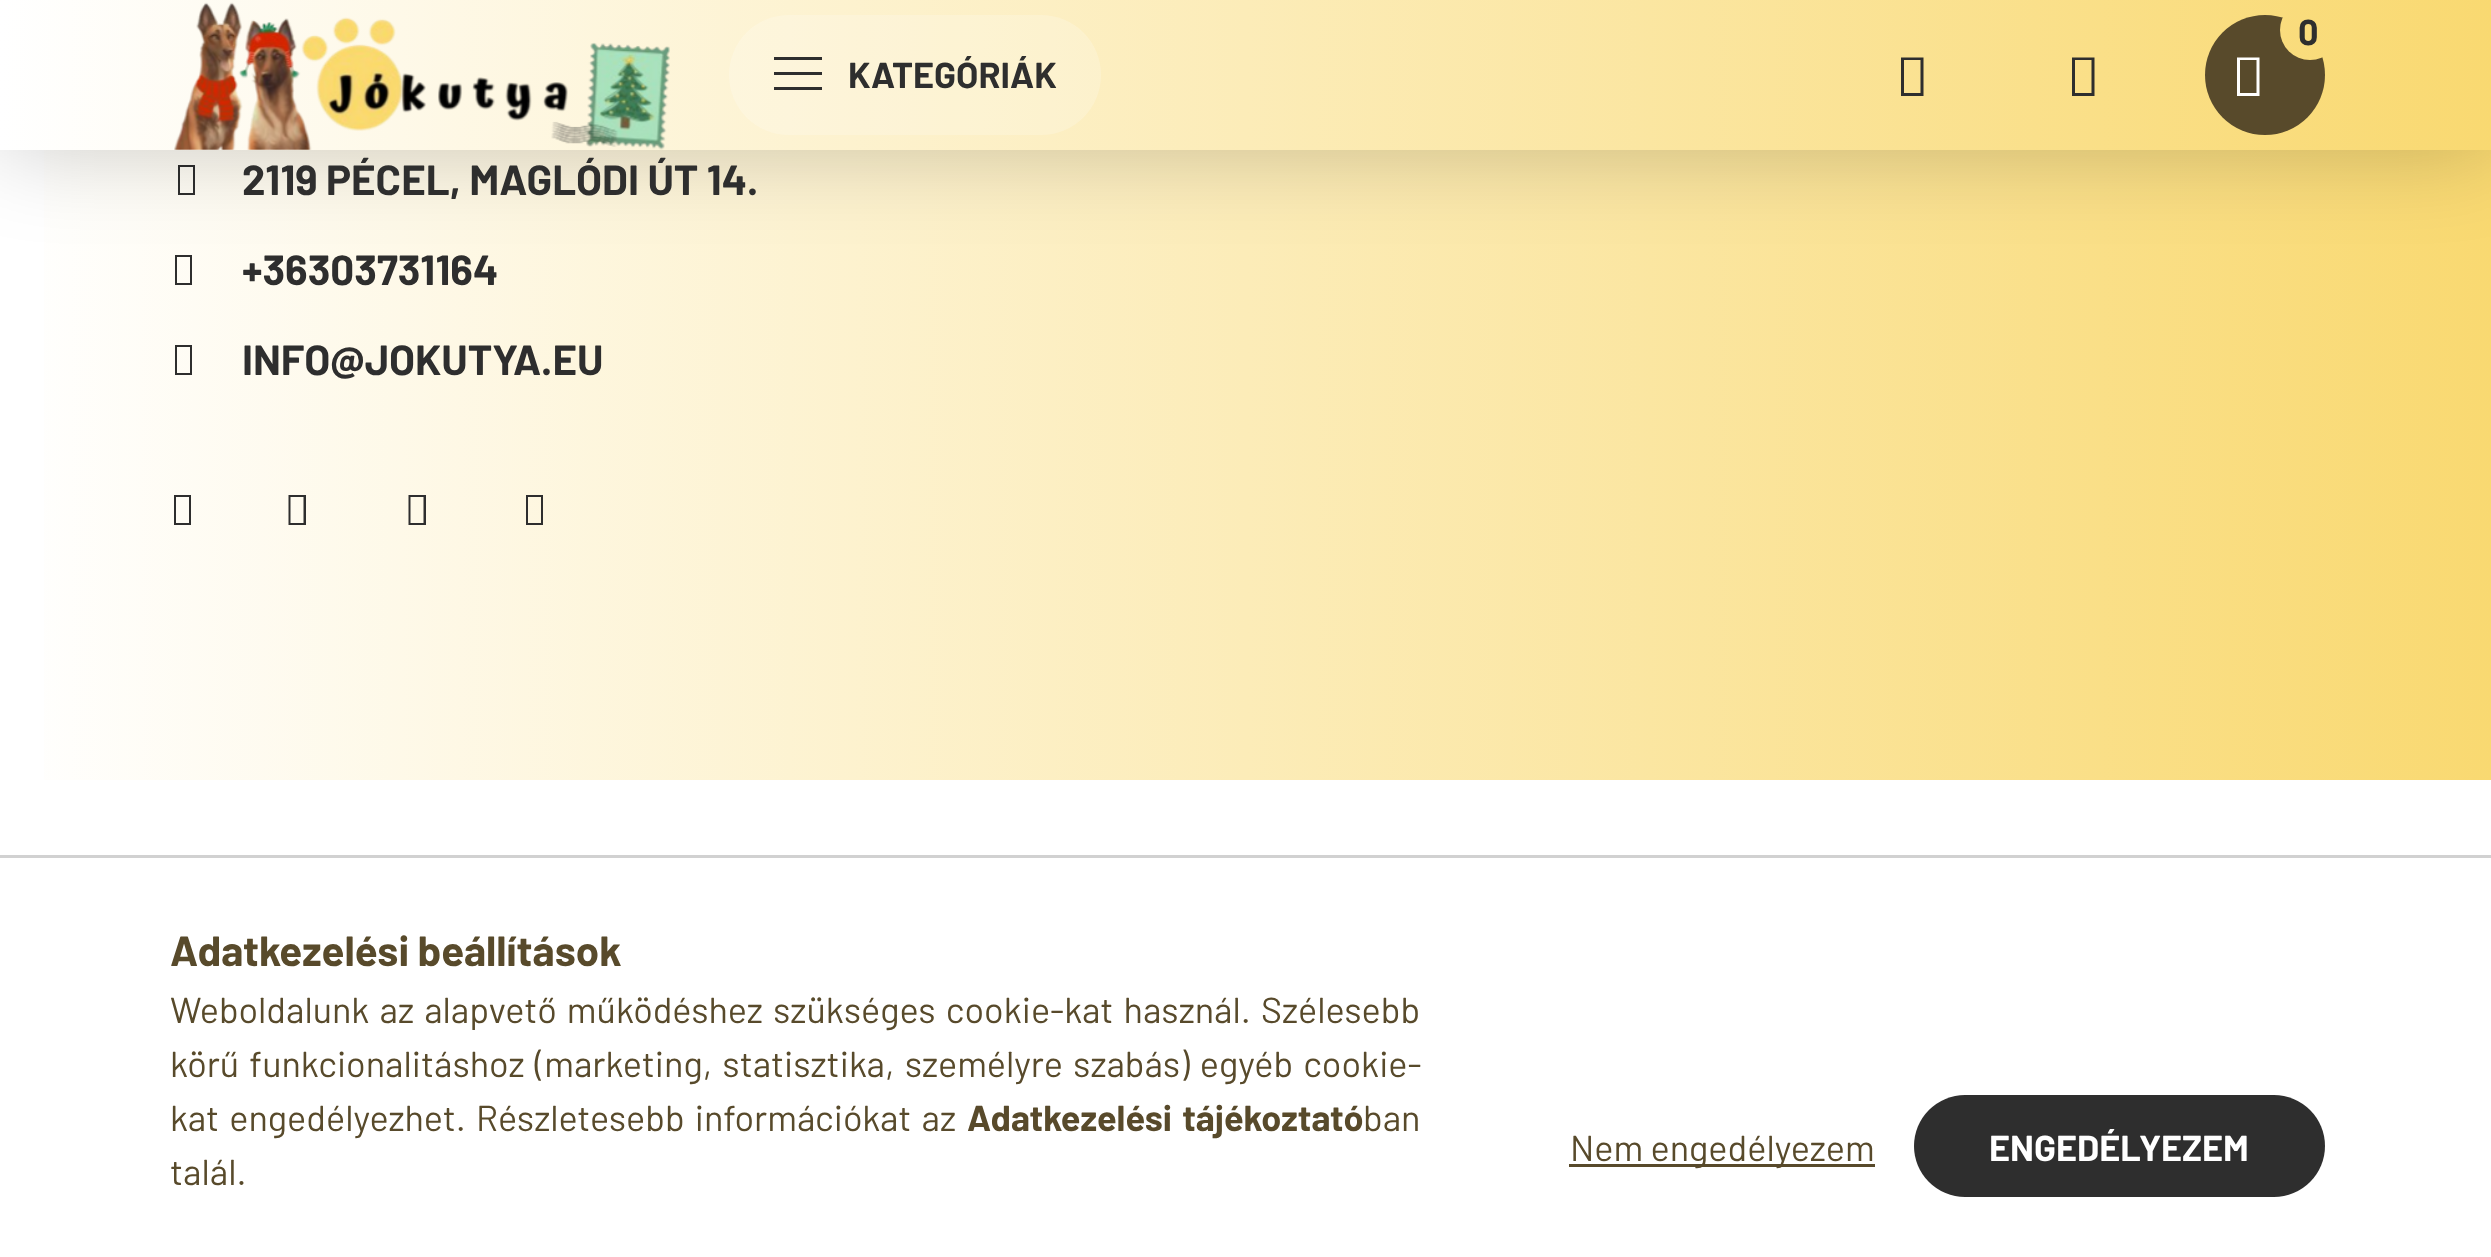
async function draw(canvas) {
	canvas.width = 2491;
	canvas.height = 1257;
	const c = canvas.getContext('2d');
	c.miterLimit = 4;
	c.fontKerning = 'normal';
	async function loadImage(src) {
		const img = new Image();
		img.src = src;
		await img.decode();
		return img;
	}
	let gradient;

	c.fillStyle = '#fff';
	c.fillRect(0, 0, 2491, 1257);
	gradient = c.createLinearGradient(0, 629, 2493, 628);
	gradient.addColorStop(0, '#fff');
	gradient.addColorStop(1, '#f9d971');
	c.fillStyle = gradient;
	c.fillRect(44, 150, 2447, 630);
	c.fillStyle = '#2e2e2e';
	c.beginPath();
	c.moveTo(178, 195);
	c.lineTo(178, 165);
	c.lineTo(195, 165);
	c.lineTo(195, 195);
	c.closePath();
	c.moveTo(180, 193);
	c.lineTo(193, 193);
	c.lineTo(193, 167);
	c.lineTo(180, 167);
	c.closePath();
	c.fill();
	c.beginPath();
	c.moveTo(175, 285);
	c.lineTo(175, 255);
	c.lineTo(192, 255);
	c.lineTo(192, 285);
	c.closePath();
	c.moveTo(177, 283);
	c.lineTo(190, 283);
	c.lineTo(190, 257);
	c.lineTo(177, 257);
	c.closePath();
	c.fill();
	c.fillStyle = '#00000033';
	c.filter = 'blur(45px)';
	c.beginPath();
	c.rect(0, 0, 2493, 150);
	c.fill();
	c.filter = 'none';
	gradient = c.createLinearGradient(0, 629, 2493, 628);
	gradient.addColorStop(0, '#fff');
	gradient.addColorStop(1, '#f9d971');
	c.fillStyle = gradient;
	c.fillRect(0, 0, 2491, 150);
	c.fillStyle = '#584a2b';
	c.beginPath();
	c.arc(2265, 75, 60, 0, 2 * Math.PI);
	c.fill();
	gradient = c.createLinearGradient(0, 629, 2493, 628);
	gradient.addColorStop(0, '#fff');
	gradient.addColorStop(1, '#f9d971');
	c.fillStyle = gradient;
	c.beginPath();
	c.arc(2310, 30, 30, 0, 2 * Math.PI);
	c.fill();
	c.font = 'bold 36px Barlow';
	c.fillStyle = '#2e2e2e';
	c.fillText('0', 2298, 45);
	c.fillStyle = '#fff';
	c.beginPath();
	c.moveTo(2237, 96);
	c.lineTo(2237, 57.5);
	c.lineTo(2259.5, 57.5);
	c.lineTo(2259.5, 96);
	c.closePath();
	c.moveTo(2240, 93);
	c.lineTo(2256.5, 93);
	c.lineTo(2256.5, 60);
	c.lineTo(2240, 60);
	c.closePath();
	c.fill();
	c.fillStyle = '#2e2e2e';
	c.beginPath();
	c.moveTo(1901, 96);
	c.lineTo(1901, 57.5);
	c.lineTo(1923.5, 57.5);
	c.lineTo(1923.5, 96);
	c.closePath();
	c.moveTo(1904, 93);
	c.lineTo(1920.5, 93);
	c.lineTo(1920.5, 60);
	c.lineTo(1904, 60);
	c.closePath();
	c.fill();
	c.beginPath();
	c.moveTo(2072, 96);
	c.lineTo(2072, 57.5);
	c.lineTo(2094.5, 57.5);
	c.lineTo(2094.5, 96);
	c.closePath();
	c.moveTo(2075, 93);
	c.lineTo(2091.5, 93);
	c.lineTo(2091.5, 60);
	c.lineTo(2075, 60);
	c.closePath();
	c.fill();
	c.drawImage(await loadImage('img1.png'), 174, 2, 496, 148);
	c.fillStyle = '#ffffff33';
	c.beginPath();
	c.roundRect(729, 15, 372, 120, 60);
	c.fill();
	for (const [x, y, w, h, color] of [
		[774, 57, 48, 3, '#2e2e2e'],
		[774, 72, 48, 3, '#2e2e2e'],
		[774, 87, 48, 3, '#2e2e2e'],
	]) {
		c.fillStyle = color;
		c.fillRect(x, y, w, h);
	}
	c.fillText('KATEGÓRIÁK', 848, 88);
	c.font = 'bold 42px Barlow';
	c.fillText('2119 PÉCEL, MAGLÓDI ÚT 14.', 242, 195);
	c.fillText('+36303731164', 242, 285);
	c.beginPath();
	c.moveTo(175, 375);
	c.lineTo(175, 345);
	c.lineTo(192, 345);
	c.lineTo(192, 375);
	c.closePath();
	c.moveTo(177, 373);
	c.lineTo(190, 373);
	c.lineTo(190, 347);
	c.lineTo(177, 347);
	c.closePath();
	c.fill();
	c.fillText('INFO@JOKUTYA.EU', 242, 375);
	c.beginPath();
	c.moveTo(174, 525);
	c.lineTo(174, 495);
	c.lineTo(191, 495);
	c.lineTo(191, 525);
	c.closePath();
	c.moveTo(176, 523);
	c.lineTo(189, 523);
	c.lineTo(189, 497);
	c.lineTo(176, 497);
	c.closePath();
	c.fill();
	c.beginPath();
	c.moveTo(288.5, 525);
	c.lineTo(288.5, 495);
	c.lineTo(306, 495);
	c.lineTo(306, 525);
	c.closePath();
	c.moveTo(290.5, 523);
	c.lineTo(303.5, 523);
	c.lineTo(303.5, 497);
	c.lineTo(290.5, 497);
	c.closePath();
	c.fill();
	c.beginPath();
	c.moveTo(408.5, 525);
	c.lineTo(408.5, 495);
	c.lineTo(426, 495);
	c.lineTo(426, 525);
	c.closePath();
	c.moveTo(410.5, 523);
	c.lineTo(423.5, 523);
	c.lineTo(423.5, 497);
	c.lineTo(410.5, 497);
	c.closePath();
	c.fill();
	c.beginPath();
	c.moveTo(526, 525);
	c.lineTo(526, 495);
	c.lineTo(543, 495);
	c.lineTo(543, 525);
	c.closePath();
	c.moveTo(528, 523);
	c.lineTo(541, 523);
	c.lineTo(541, 497);
	c.lineTo(528, 497);
	c.closePath();
	c.fill();
	c.fillStyle = '#d1d1d1';
	c.fillRect(0, 855, 2491, 3);
	c.fillStyle = '#584a2b';
	c.fillText('Adatkezelési beállítások', 170, 966);
	c.wordSpacing = '3px';
	c.font = '36px Barlow';
	for (const [text, x, y] of [
		['Weboldalunk az alapvető működéshez szükséges cookie-kat használ. Szélesebb', 170, 1023],
		['körű funkcionalitáshoz (marketing, statisztika, személyre szabás) egyéb cookie-', 170, 1077],
		['kat engedélyezhet. Részletesebb információkat az', 170, 1131],
	]) {
		c.fillText(text, x, y);
	}
	c.font = 'bold 36px Barlow';
	c.fillText('Adatkezelési tájékoztató', 967, 1131);
	c.wordSpacing = '0px';
	c.font = '36px Barlow';
	c.fillText('ban', 1363, 1131);
	c.fillText('talál.', 170, 1185);
	c.fillRect(1569, 1164, 306, 3);
	c.fillText('Nem engedélyezem', 1570, 1161);
	gradient = c.createLinearGradient(1914, 1146, 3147, 1146);
	gradient.addColorStop(0.33, '#2e2e2e');
	gradient.addColorStop(0.67, '#fdffda');
	c.fillStyle = gradient;
	c.beginPath();
	c.roundRect(1914, 1095, 411, 102, 51);
	c.fill();
	c.font = 'bold 36px Barlow';
	c.fillStyle = '#fff';
	c.fillText('ENGEDÉLYEZEM', 1989, 1161);
}

draw(document.querySelector('canvas'));
